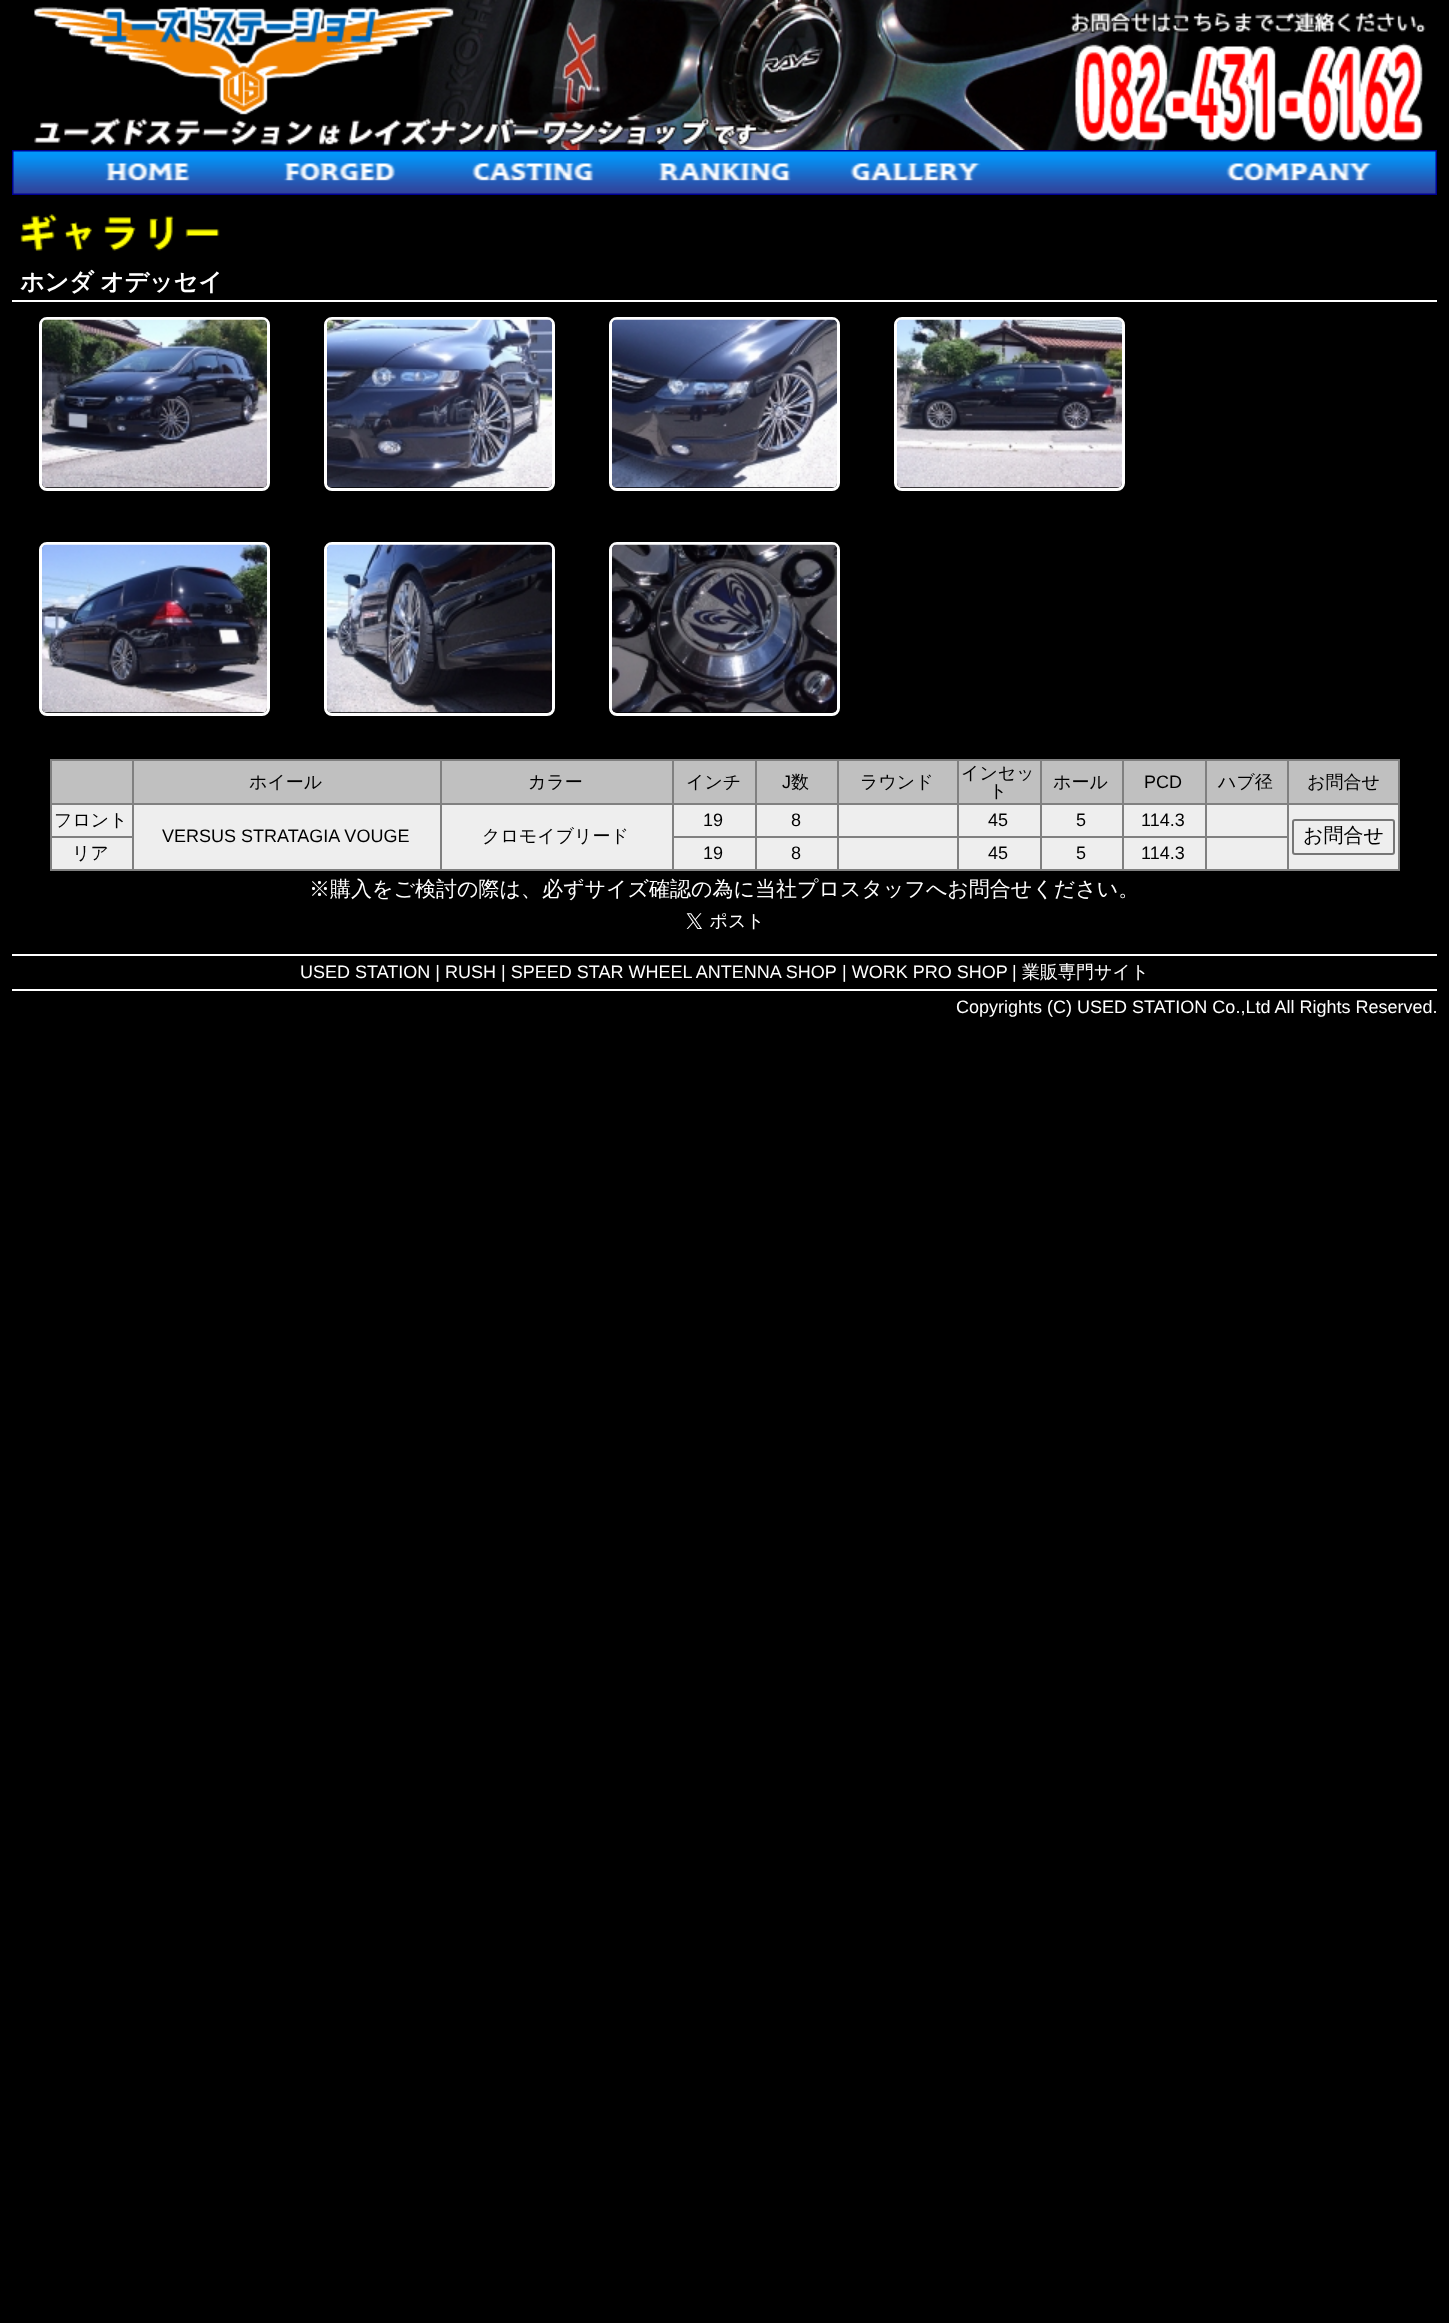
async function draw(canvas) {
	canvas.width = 1449;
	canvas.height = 2323;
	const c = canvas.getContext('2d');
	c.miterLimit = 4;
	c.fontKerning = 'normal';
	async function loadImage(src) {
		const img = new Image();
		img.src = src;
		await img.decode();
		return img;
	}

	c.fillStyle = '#000';
	c.fillRect(0, 0, 1449, 2323);
	c.drawImage(await loadImage('img1.png'), 34, 0, 1392, 150);
	c.drawImage(await loadImage('img2.png'), 12, 150, 1425, 45);
	c.drawImage(await loadImage('img3.png'), 105, 163, 85, 18);
	c.drawImage(await loadImage('img4.png'), 283, 163, 113, 18);
	c.drawImage(await loadImage('img5.png'), 472, 163, 122, 18);
	c.drawImage(await loadImage('img6.png'), 658, 163, 133, 18);
	c.drawImage(await loadImage('img7.png'), 850, 163, 131, 18);
	c.drawImage(await loadImage('img8.png'), 1226, 163, 147, 18);
	c.drawImage(await loadImage('img9.png'), 20, 214, 200, 37);
	c.fillStyle = '#fff';
	c.fillRect(12, 300, 1425, 2);
	c.wordSpacing = '-1px';
	c.font = 'bold 24px WenQuanYi Zen Hei';
	c.fillText('ホンダ オデッセイ', 20, 290);
	c.beginPath();
	c.roundRect(40.5, 318.5, 228, 171, 6.5);
	c.strokeStyle = '#fff';
	c.lineWidth = 3;
	c.stroke();
	c.drawImage(await loadImage('img10.png'), 42, 319, 225, 169);
	c.beginPath();
	c.roundRect(325.5, 318.5, 228, 171, 6.5);
	c.stroke();
	c.drawImage(await loadImage('img11.png'), 327, 319, 225, 169);
	c.beginPath();
	c.roundRect(610.5, 318.5, 228, 171, 6.5);
	c.stroke();
	c.drawImage(await loadImage('img12.png'), 612, 319, 225, 169);
	c.beginPath();
	c.roundRect(895.5, 318.5, 228, 171, 6.5);
	c.stroke();
	c.drawImage(await loadImage('img13.png'), 897, 319, 225, 169);
	c.beginPath();
	c.roundRect(40.5, 543.5, 228, 171, 6.5);
	c.stroke();
	c.drawImage(await loadImage('img14.png'), 42, 544, 225, 169);
	c.beginPath();
	c.roundRect(325.5, 543.5, 228, 171, 6.5);
	c.stroke();
	c.drawImage(await loadImage('img15.png'), 327, 544, 225, 169);
	c.beginPath();
	c.roundRect(610.5, 543.5, 228, 171, 6.5);
	c.stroke();
	c.drawImage(await loadImage('img16.png'), 612, 544, 225, 169);
	for (const [x, y, w, h, color] of [
		[52, 761, 1346, 42, '#c0c0c0'],
		[1287, 759, 113, 2, '#808080'],
		[1287, 803, 113, 2, '#808080'],
		[52, 805, 1346, 64, '#eee'],
		[1398, 803, 2, 67, '#808080'],
		[1205, 869, 84, 2, '#808080'],
		[1287, 869, 113, 2, '#808080'],
		[1205, 836, 84, 2, '#808080'],
		[1287, 803, 2, 67, '#808080'],
		[1205, 803, 84, 2, '#808080'],
		[1287, 759, 2, 45, '#808080'],
		[1205, 759, 84, 2, '#808080'],
		[1205, 836, 2, 34, '#808080'],
		[1122, 836, 84, 2, '#808080'],
		[1205, 803, 2, 34, '#808080'],
		[1122, 803, 84, 2, '#808080'],
		[1205, 759, 2, 45, '#808080'],
		[1122, 759, 84, 2, '#808080'],
		[1122, 869, 84, 2, '#808080'],
		[1122, 836, 2, 34, '#808080'],
		[1040, 836, 84, 2, '#808080'],
		[1122, 803, 2, 34, '#808080'],
		[1040, 803, 84, 2, '#808080'],
		[1122, 759, 2, 45, '#808080'],
		[1040, 759, 84, 2, '#808080'],
		[1040, 869, 84, 2, '#808080'],
		[1040, 836, 2, 34, '#808080'],
		[957, 836, 84, 2, '#808080'],
		[1040, 803, 2, 34, '#808080'],
		[957, 803, 84, 2, '#808080'],
		[1040, 759, 2, 45, '#808080'],
		[957, 759, 84, 2, '#808080'],
		[957, 869, 84, 2, '#808080'],
		[957, 836, 2, 34, '#808080'],
		[837, 836, 122, 2, '#808080'],
		[957, 803, 2, 34, '#808080'],
		[837, 803, 122, 2, '#808080'],
		[957, 759, 2, 45, '#808080'],
		[837, 759, 122, 2, '#808080'],
		[837, 869, 122, 2, '#808080'],
		[837, 836, 2, 34, '#808080'],
		[755, 836, 84, 2, '#808080'],
		[837, 803, 2, 34, '#808080'],
		[755, 803, 84, 2, '#808080'],
		[837, 759, 2, 45, '#808080'],
		[755, 759, 84, 2, '#808080'],
		[755, 869, 84, 2, '#808080'],
		[755, 836, 2, 34, '#808080'],
		[672, 836, 84, 2, '#808080'],
		[755, 803, 2, 34, '#808080'],
		[672, 803, 84, 2, '#808080'],
		[755, 759, 2, 45, '#808080'],
		[672, 759, 84, 2, '#808080'],
		[672, 869, 84, 2, '#808080'],
		[672, 836, 2, 34, '#808080'],
		[672, 803, 2, 34, '#808080'],
		[440, 803, 234, 2, '#808080'],
		[672, 759, 2, 45, '#808080'],
		[440, 759, 234, 2, '#808080'],
		[440, 869, 234, 2, '#808080'],
		[440, 803, 2, 67, '#808080'],
		[132, 803, 309, 2, '#808080'],
		[440, 759, 2, 45, '#808080'],
		[132, 759, 309, 2, '#808080'],
		[50, 869, 84, 2, '#808080'],
		[132, 869, 309, 2, '#808080'],
		[50, 836, 84, 2, '#808080'],
		[132, 803, 2, 67, '#808080'],
		[50, 803, 84, 2, '#808080'],
		[132, 759, 2, 45, '#808080'],
		[50, 759, 84, 2, '#808080'],
		[50, 836, 2, 34, '#808080'],
		[50, 803, 2, 34, '#808080'],
		[50, 759, 2, 45, '#808080'],
	]) {
		c.fillStyle = color;
		c.fillRect(x, y, w, h);
	}
	c.wordSpacing = '0px';
	c.font = '500 18px WenQuanYi Zen Hei';
	c.fillStyle = '#000';
	for (const [text, x, y] of [
		['ホイール', 249, 788],
		['カラー', 528, 788],
		['インチ', 686, 788],
	]) {
		c.fillText(text, x, y);
	}
	c.font = '18px Liberation Sans';
	c.fillText('J', 782, 788);
	c.font = '500 18px WenQuanYi Zen Hei';
	for (const [text, x, y] of [
		['数', 791, 788],
		['ラウンド', 860, 788],
		['インセッ', 961, 779],
		['ト', 989, 797],
		['ホール', 1053, 788],
	]) {
		c.fillText(text, x, y);
	}
	c.font = '18px Liberation Sans';
	c.fillText('PCD', 1144, 788);
	c.font = '500 18px WenQuanYi Zen Hei';
	c.fillText('ハブ径', 1218, 788);
	c.fillStyle = '#808080';
	c.fillRect(1398, 759, 2, 45);
	c.fillStyle = '#000';
	c.fillText('お問合せ', 1307, 788);
	c.fillText('フロント', 54, 826);
	c.font = '18px Liberation Sans';
	for (const [text, x, y] of [
		['19', 703, 826],
		['8', 791, 826],
		['45', 988, 826],
		['5', 1076, 826],
		['114.3', 1141, 826],
		['VERSUS STRATAGIA VOUGE', 162, 842],
	]) {
		c.fillText(text, x, y);
	}
	c.font = '500 18px WenQuanYi Zen Hei';
	c.fillText('クロモイブリード', 482, 842);
	c.beginPath();
	c.roundRect(1293, 820, 101, 34, 2);
	c.strokeStyle = '#767676';
	c.lineWidth = 2;
	c.stroke();
	c.font = '500 20px WenQuanYi Zen Hei';
	c.fillText('お問合せ', 1303, 842);
	c.font = '500 18px WenQuanYi Zen Hei';
	c.fillText('リア', 72, 859);
	c.font = '18px Liberation Sans';
	for (const [text, x, y] of [
		['19', 703, 859],
		['8', 791, 859],
		['45', 988, 859],
		['5', 1076, 859],
		['114.3', 1141, 859],
	]) {
		c.fillText(text, x, y);
	}
	c.font = '500 21px WenQuanYi Zen Hei';
	c.fillStyle = '#fff';
	c.fillText('※購入をご検討の際は、必ずサイズ確認の為に当社プロスタッフへお問合せください。', 309, 896);
	c.drawImage(await loadImage('img17.png'), 686, 913, 74, 17);
	c.fillRect(12, 954, 1425, 2);
	c.fillRect(12, 989, 1425, 2);
	c.font = '18px Liberation Sans';
	for (const [text, x, y] of [
		['USED STATION | RUSH | SPEED STAR WHEEL ANTENNA SHOP', 300, 978],
		['| WORK PRO SHOP', 842, 978],
		['|', 1012, 978],
	]) {
		c.fillText(text, x, y);
	}
	c.font = '500 18px WenQuanYi Zen Hei';
	c.fillText('業販専門サイト', 1022, 978);
	c.font = '18px Liberation Sans';
	c.fillText('Copyrights (C) USED STATION Co.,Ltd All Rights Reserved.', 956, 1013);
}

draw(document.querySelector('canvas'));
